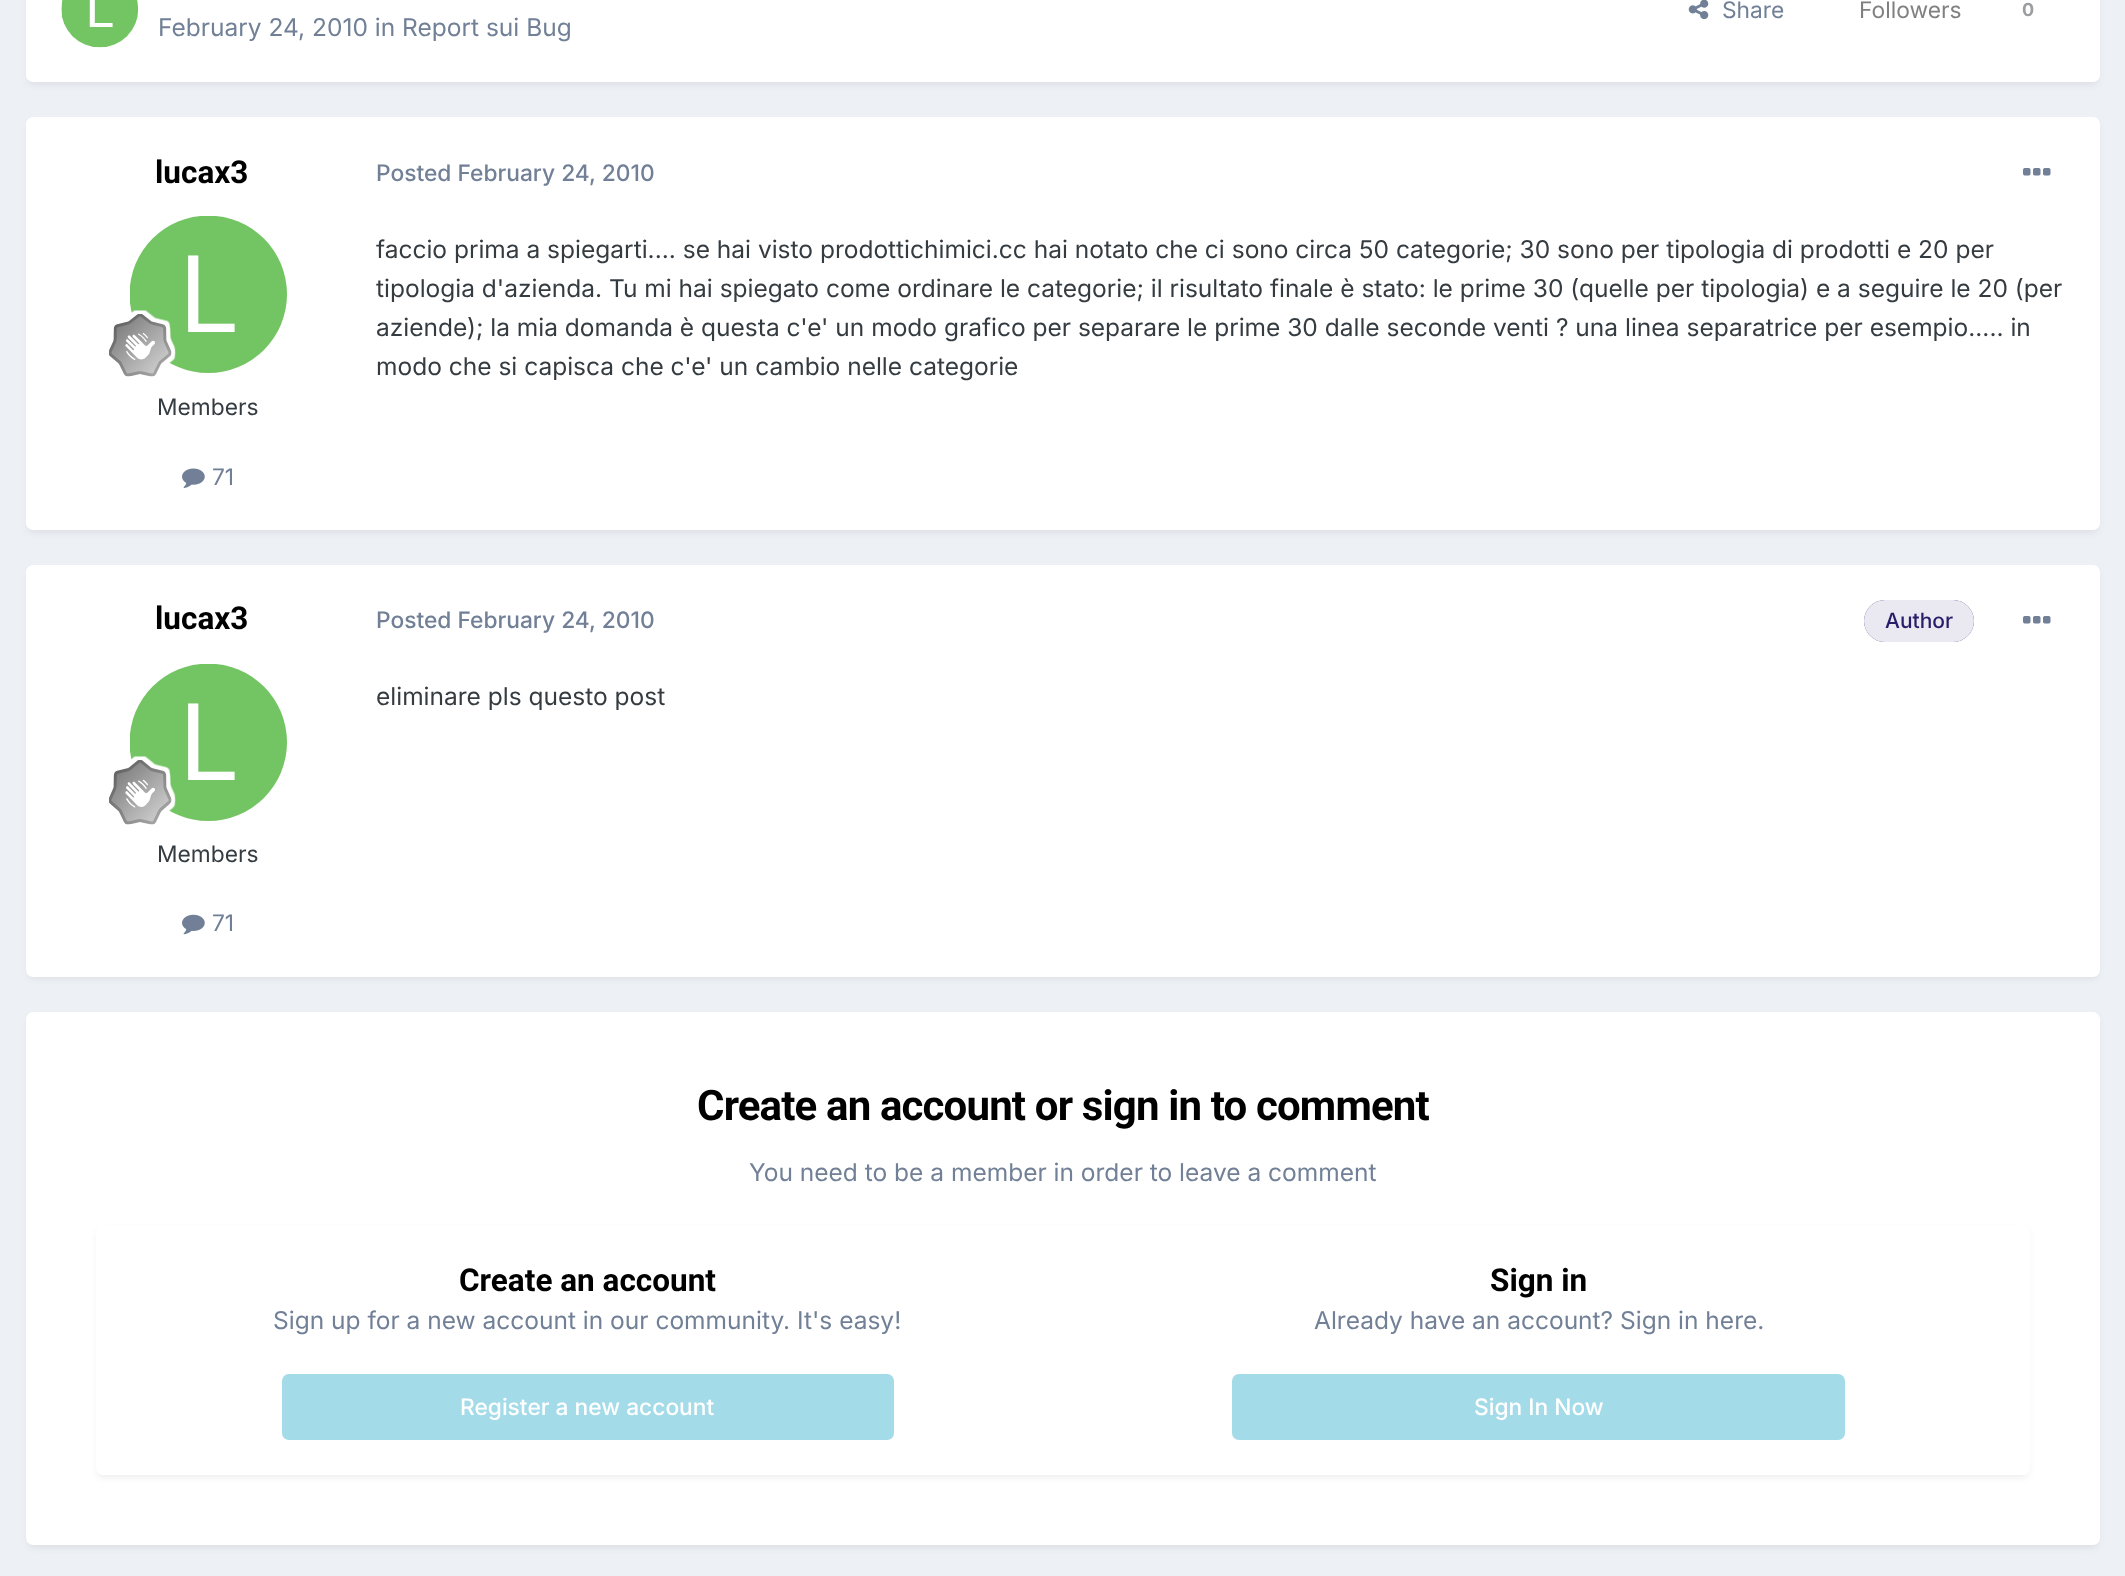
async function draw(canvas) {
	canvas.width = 2125;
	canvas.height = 1576;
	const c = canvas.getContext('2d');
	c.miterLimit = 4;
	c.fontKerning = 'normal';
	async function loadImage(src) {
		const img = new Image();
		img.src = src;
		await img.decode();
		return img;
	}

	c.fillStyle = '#edf0f4';
	c.fillRect(0, 0, 2125, 1576);
	c.fillStyle = '#2d37481a';
	c.filter = 'blur(3.5px)';
	c.beginPath();
	c.roundRect(28, -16, 2070, 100, 5);
	c.fill();
	c.filter = 'none';
	c.fillStyle = '#fff';
	c.beginPath();
	c.roundRect(26, -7, 2074, 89, 7);
	c.fill();
	c.drawImage(await loadImage('img1.png'), 1688, 0, 21, 20);
	c.font = '22.75px Inter';
	c.fillStyle = '#718096';
	c.fillText('Share', 1722, 18);
	c.fillStyle = '#808080';
	c.fillText('Followers', 1859, 18);
	c.font = 'bold 18px Inter';
	c.fillStyle = '#9a9ea0';
	c.fillText('0', 2022, 16);
	c.drawImage(await loadImage('img2.png'), 61, 0, 77, 48);
	c.font = '24.5px Inter';
	c.fillStyle = '#718096';
	c.fillText('February 24, 2010 in Report sui Bug', 158, 36);
	c.fillStyle = '#2d37481a';
	c.filter = 'blur(3.5px)';
	c.beginPath();
	c.roundRect(28, 123, 2070, 409, 5);
	c.fill();
	c.filter = 'none';
	c.fillStyle = '#fff';
	c.beginPath();
	c.roundRect(26, 117, 2074, 413, 7);
	c.fill();
	c.font = 'bold 31.5px Roboto';
	c.fillStyle = '#000';
	c.fillText('lucax3', 155, 183);
	c.drawImage(await loadImage('img3.png'), 130, 216, 157, 157);
	c.drawImage(await loadImage('img4.png'), 109, 310, 67, 67);
	c.font = '22.75px Inter';
	c.fillStyle = '#353c41';
	c.fillText('Members', 157, 415);
	c.drawImage(await loadImage('img5.png'), 182, 468, 23, 20);
	c.fillStyle = '#718096';
	c.fillText('71', 212, 485);
	c.font = '500 22.75px Inter';
	c.fillText('Posted February 24, 2010', 376, 181);
	c.drawImage(await loadImage('img6.png'), 2023, 168, 28, 8);
	c.font = '24.5px Inter';
	c.fillStyle = '#353c41';
	for (const [text, x, y] of [
		['faccio prima a spiegarti.... se hai visto prodottichimici.cc hai notato che ci sono circa 50 categorie; 30 sono per tipologia di prodotti e 20 per', 376, 258],
		['tipologia d\'azienda. Tu mi hai spiegato come ordinare le categorie; il risultato finale è stato: le prime 30 (quelle per tipologia) e a seguire le 20 (per', 376, 297],
		['aziende); la mia domanda è questa c\'e\' un modo grafico per separare le prime 30 dalle seconde venti ? una linea separatrice per esempio..... in', 376, 336],
		['modo che si capisca che c\'e\' un cambio nelle categorie', 376, 375],
	]) {
		c.fillText(text, x, y);
	}
	c.fillStyle = '#2d37481a';
	c.filter = 'blur(3.5px)';
	c.beginPath();
	c.roundRect(28, 571, 2070, 407, 5);
	c.fill();
	c.filter = 'none';
	c.fillStyle = '#fff';
	c.beginPath();
	c.roundRect(26, 565, 2074, 412, 7);
	c.fill();
	c.font = 'bold 31.5px Roboto';
	c.fillStyle = '#000';
	c.fillText('lucax3', 155, 629);
	c.drawImage(await loadImage('img3.png'), 130, 664, 157, 157);
	c.drawImage(await loadImage('img7.png'), 109, 756, 67, 69);
	c.font = '22.75px Inter';
	c.fillStyle = '#353c41';
	c.fillText('Members', 157, 862);
	c.drawImage(await loadImage('img8.png'), 182, 914, 23, 21);
	c.fillStyle = '#718096';
	c.fillText('71', 212, 931);
	c.font = '500 22.75px Inter';
	c.fillText('Posted February 24, 2010', 376, 628);
	c.fillStyle = '#281d68';
	c.beginPath();
	c.roundRect(1864, 600, 110, 42, 21);
	c.fill();
	c.fillStyle = '#ffffffe6';
	c.beginPath();
	c.roundRect(1864, 600, 110, 42, 21);
	c.fill();
	c.font = '500 21px Inter';
	c.fillStyle = '#281d68';
	c.fillText('Author', 1885, 628);
	c.drawImage(await loadImage('img6.png'), 2023, 616, 28, 8);
	c.font = '24.5px Inter';
	c.fillStyle = '#353c41';
	c.fillText('eliminare pls questo post', 376, 705);
	c.fillStyle = '#2d37481a';
	c.filter = 'blur(3.5px)';
	c.beginPath();
	c.roundRect(28, 1017, 2070, 530, 5);
	c.fill();
	c.filter = 'none';
	c.fillStyle = '#fff';
	c.beginPath();
	c.roundRect(26, 1012, 2074, 533, 7);
	c.fill();
	c.letterSpacing = '-0.85px';
	c.font = 'bold 42px Roboto';
	c.fillStyle = '#000';
	c.fillText('Create an account or sign in to comment', 697, 1120);
	c.letterSpacing = '0px';
	c.font = '24.5px Inter';
	c.fillStyle = '#718096';
	c.fillText('You need to be a member in order to leave a comment', 749, 1181);
	c.fillStyle = '#2d37481a';
	c.filter = 'blur(3.5px)';
	c.beginPath();
	c.roundRect(98, 1230, 1930, 247, 5);
	c.fill();
	c.filter = 'none';
	c.fillStyle = '#fff';
	c.beginPath();
	c.roundRect(96, 1225, 1934, 250, 7);
	c.fill();
	c.font = 'bold 31.5px Roboto';
	c.fillStyle = '#000';
	c.fillText('Create an account', 459, 1291);
	c.font = '24.5px Inter';
	c.fillStyle = '#718096';
	c.fillText('Sign up for a new account in our community. It\'s easy!', 273, 1329);
	c.fillStyle = '#a4dbe8';
	c.beginPath();
	c.roundRect(282, 1374, 612, 66, 7);
	c.fill();
	c.font = '500 22.75px Inter';
	c.fillStyle = '#fff';
	c.fillText('Register a new account', 460, 1415);
	c.font = 'bold 31.5px Roboto';
	c.fillStyle = '#000';
	c.fillText('Sign in', 1490, 1291);
	c.font = '24.5px Inter';
	c.fillStyle = '#718096';
	c.fillText('Already have an account? Sign in here.', 1314, 1329);
	c.fillStyle = '#a4dbe8';
	c.beginPath();
	c.roundRect(1232, 1374, 613, 66, 7);
	c.fill();
	c.font = '500 22.75px Inter';
	c.fillStyle = '#fff';
	c.fillText('Sign In Now', 1474, 1415);
}

draw(document.querySelector('canvas'));
